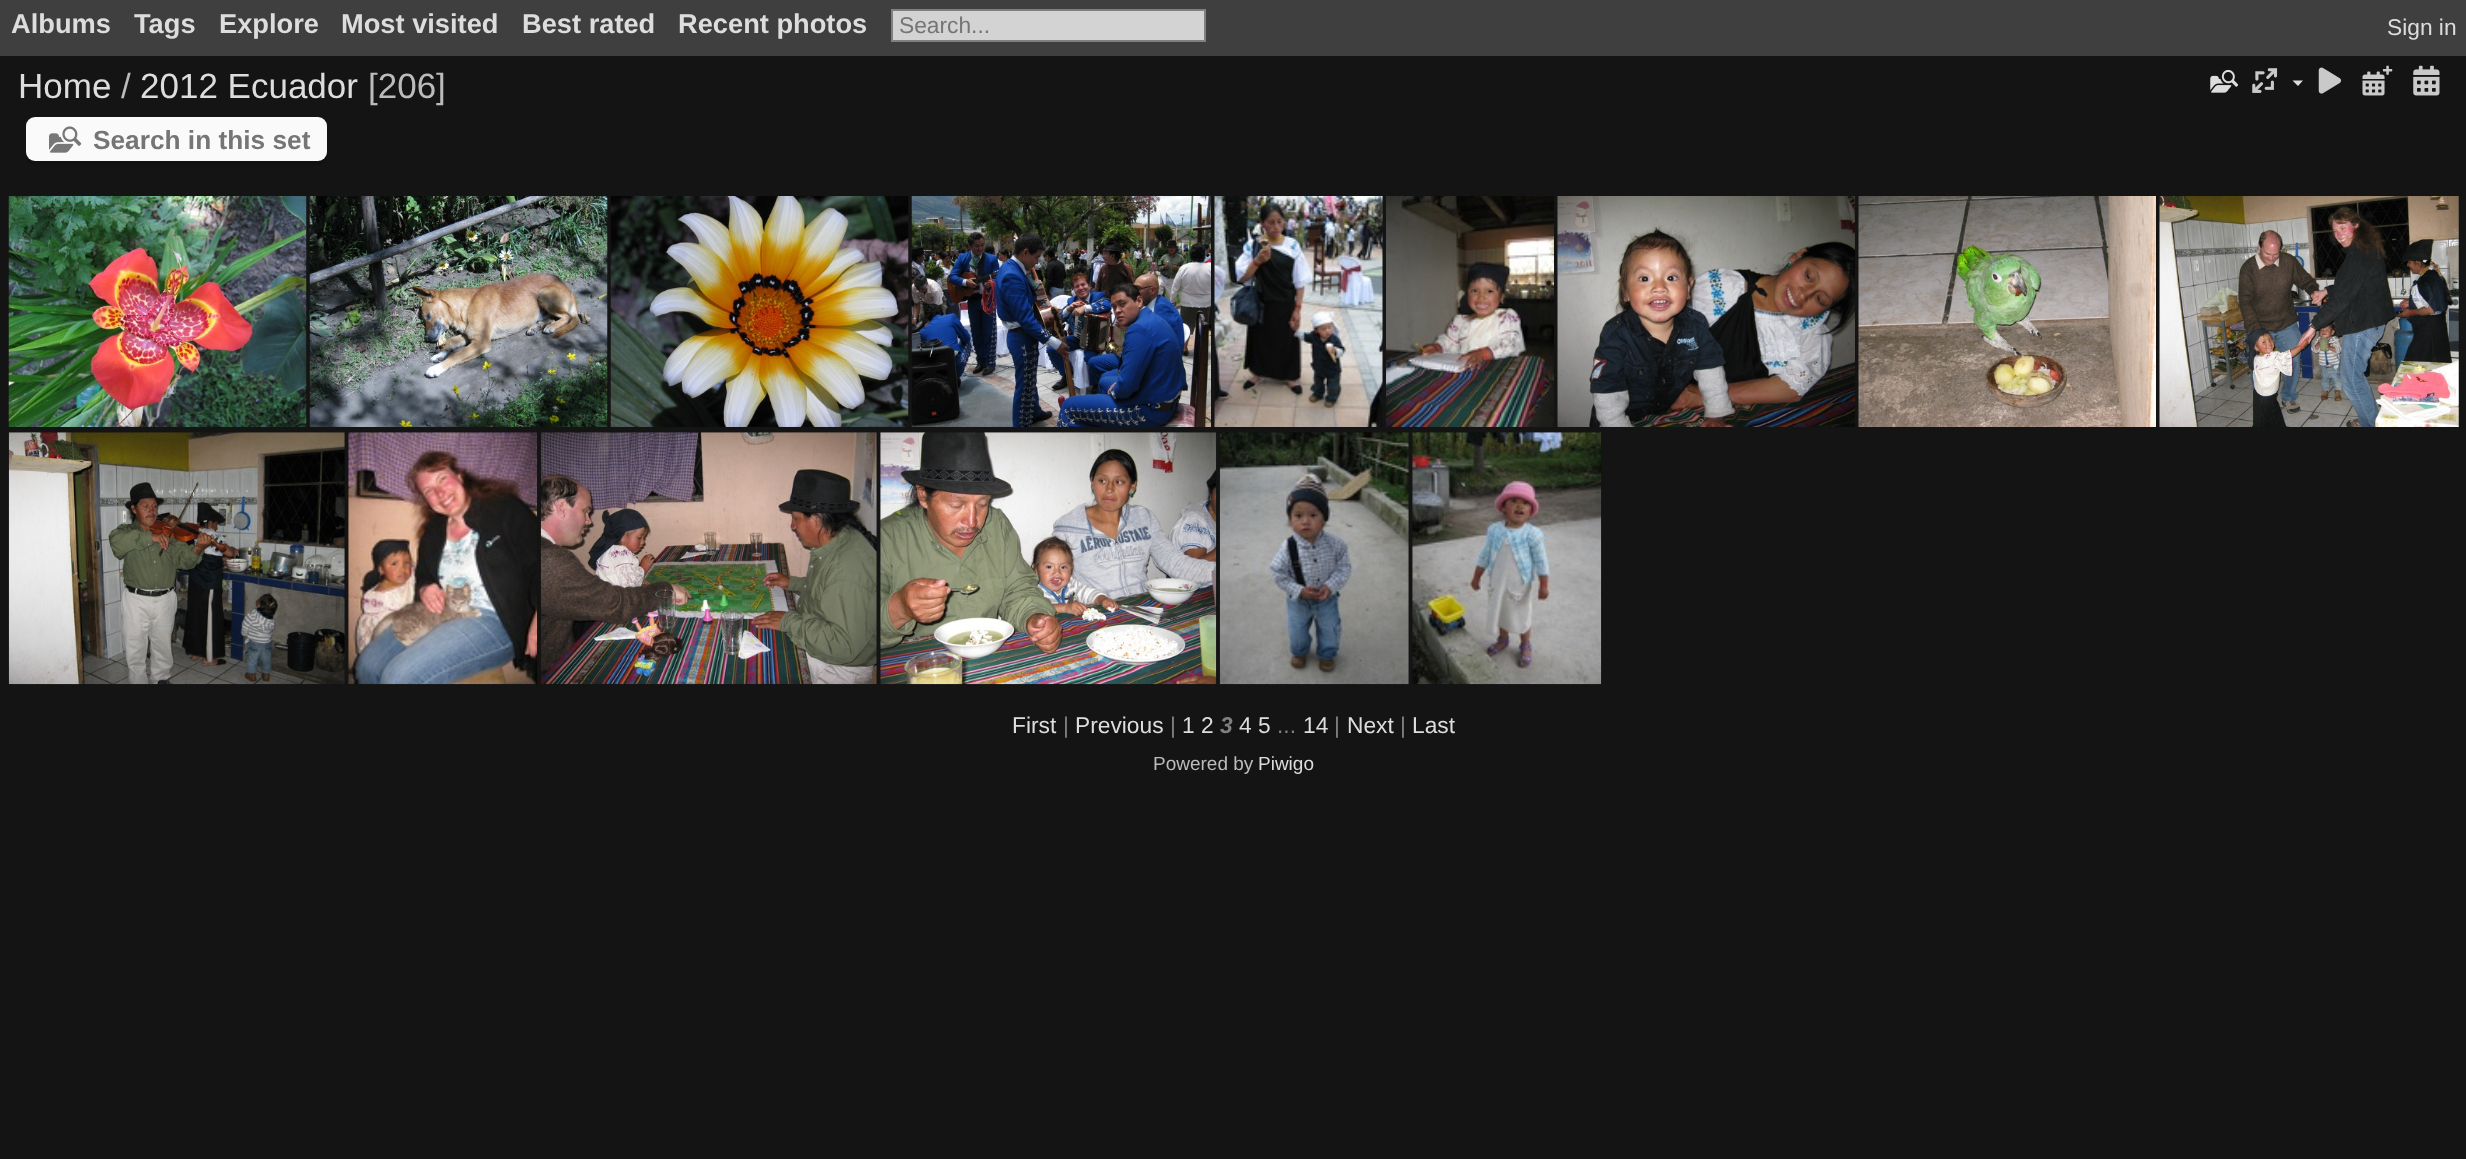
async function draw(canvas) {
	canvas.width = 2466;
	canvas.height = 1159;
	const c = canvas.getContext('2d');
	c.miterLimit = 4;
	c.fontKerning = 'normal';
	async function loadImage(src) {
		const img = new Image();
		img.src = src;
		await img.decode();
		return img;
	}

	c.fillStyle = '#141414';
	c.fillRect(0, 0, 2466, 1159);
	c.fillStyle = '#3f3f3f';
	c.fillRect(0, 0, 2466, 56);
	c.font = 'bold 27.25px Liberation Sans';
	c.fillStyle = '#ddd';
	for (const [text, x, y] of [
		['Albums', 11, 33],
		['Tags', 134, 33],
		['Explore', 219, 33],
		['Most visited', 341, 33],
		['Best rated', 522, 33],
		['Recent photos', 678, 33],
	]) {
		c.fillText(text, x, y);
	}
	c.fillStyle = '#d3d3d3';
	c.beginPath();
	c.rect(892, 10, 313, 31);
	c.fill();
	c.strokeStyle = '#808080';
	c.lineWidth = 2;
	c.stroke();
	c.font = '22.75px Liberation Sans';
	c.fillStyle = '#757575';
	c.fillText('Search...', 899, 33);
	c.fillStyle = '#ddd';
	c.fillText('Sign in', 2387, 35);
	c.font = '35px Liberation Sans';
	c.fillText('Home', 18, 98);
	c.fillStyle = '#bbb';
	c.fillText('/', 121, 98);
	c.fillStyle = '#ddd';
	c.fillText('2012 Ecuador', 140, 98);
	c.fillStyle = '#bbb';
	c.fillText('[206]', 368, 98);
	c.drawImage(await loadImage('img1.png'), 2210, 69, 29, 24);
	c.drawImage(await loadImage('img2.png'), 2252, 68, 26, 25);
	c.fillStyle = '#ddd';
	c.beginPath();
	c.moveTo(2292.5, 80.5);
	c.lineTo(2303, 80.5);
	c.lineTo(2298, 86);
	c.closePath();
	c.fill();
	c.drawImage(await loadImage('img3.png'), 2318, 67, 24, 27);
	c.drawImage(await loadImage('img4.png'), 2362, 65, 31, 31);
	c.drawImage(await loadImage('img5.png'), 2413, 65, 27, 31);
	c.fillStyle = '#111';
	c.beginPath();
	c.moveTo(26, 128);
	c.lineTo(26, 147);
	c.bezierCurveTo(26, 154, 25, 165, 35, 165);
	c.lineTo(318, 165);
	c.bezierCurveTo(324, 165, 327, 160, 327, 154);
	c.bezierCurveTo(326, 158, 323, 161, 318, 161);
	c.lineTo(35, 161);
	c.bezierCurveTo(30, 161, 26, 157, 26, 152);
	c.closePath();
	c.fill();
	c.fillStyle = '#fafafa';
	c.beginPath();
	c.roundRect(26, 117, 301, 44, 9);
	c.fill();
	c.drawImage(await loadImage('img6.png'), 49, 126, 33, 27);
	c.font = 'bold 26.25px Liberation Sans';
	c.fillStyle = '#757575';
	c.fillText('Search in this set', 93, 149);
	c.drawImage(await loadImage('img7.png'), 8, 196, 299, 231);
	c.drawImage(await loadImage('img8.png'), 309, 196, 299, 231);
	c.drawImage(await loadImage('img9.png'), 610, 196, 299, 231);
	c.drawImage(await loadImage('img10.png'), 911, 196, 300, 231);
	c.drawImage(await loadImage('img11.png'), 1214, 196, 169, 231);
	c.drawImage(await loadImage('img12.png'), 1386, 196, 168, 231);
	c.drawImage(await loadImage('img13.png'), 1557, 196, 298, 231);
	c.drawImage(await loadImage('img14.png'), 1858, 196, 298, 231);
	c.drawImage(await loadImage('img15.png'), 2159, 196, 300, 231);
	c.drawImage(await loadImage('img16.png'), 8, 432, 337, 253);
	c.drawImage(await loadImage('img17.png'), 348, 432, 190, 253);
	c.drawImage(await loadImage('img18.png'), 540, 432, 337, 253);
	c.drawImage(await loadImage('img19.png'), 880, 432, 337, 253);
	c.drawImage(await loadImage('img20.png'), 1219, 432, 190, 253);
	c.drawImage(await loadImage('img21.png'), 1412, 432, 190, 253);
	c.font = '22.75px Liberation Sans';
	c.fillStyle = '#ddd';
	c.fillText('First', 1012, 733);
	c.fillStyle = '#808080';
	c.fillText('|', 1063, 733);
	c.fillStyle = '#ddd';
	c.fillText('Previous', 1075, 733);
	c.fillStyle = '#808080';
	c.fillText('|', 1170, 733);
	c.fillStyle = '#ddd';
	c.fillText('1 2', 1182, 733);
	c.font = 'italic bold 22.75px Liberation Sans';
	c.fillStyle = '#808080';
	c.fillText('3', 1220, 733);
	c.font = '22.75px Liberation Sans';
	c.fillStyle = '#ddd';
	c.fillText('4 5', 1239, 733);
	c.fillStyle = '#808080';
	c.fillText('...', 1277, 733);
	c.fillStyle = '#ddd';
	c.fillText('14', 1303, 733);
	c.fillStyle = '#808080';
	c.fillText('|', 1334, 733);
	c.fillStyle = '#ddd';
	c.fillText('Next', 1347, 733);
	c.fillStyle = '#808080';
	c.fillText('|', 1400, 733);
	c.fillStyle = '#ddd';
	c.fillText('Last', 1412, 733);
	c.font = '19px Liberation Sans';
	c.fillStyle = '#bbb';
	c.fillText('Powered by', 1153, 770);
	c.fillStyle = '#ddd';
	c.fillText('Piwigo', 1258, 770);
}

draw(document.querySelector('canvas'));
